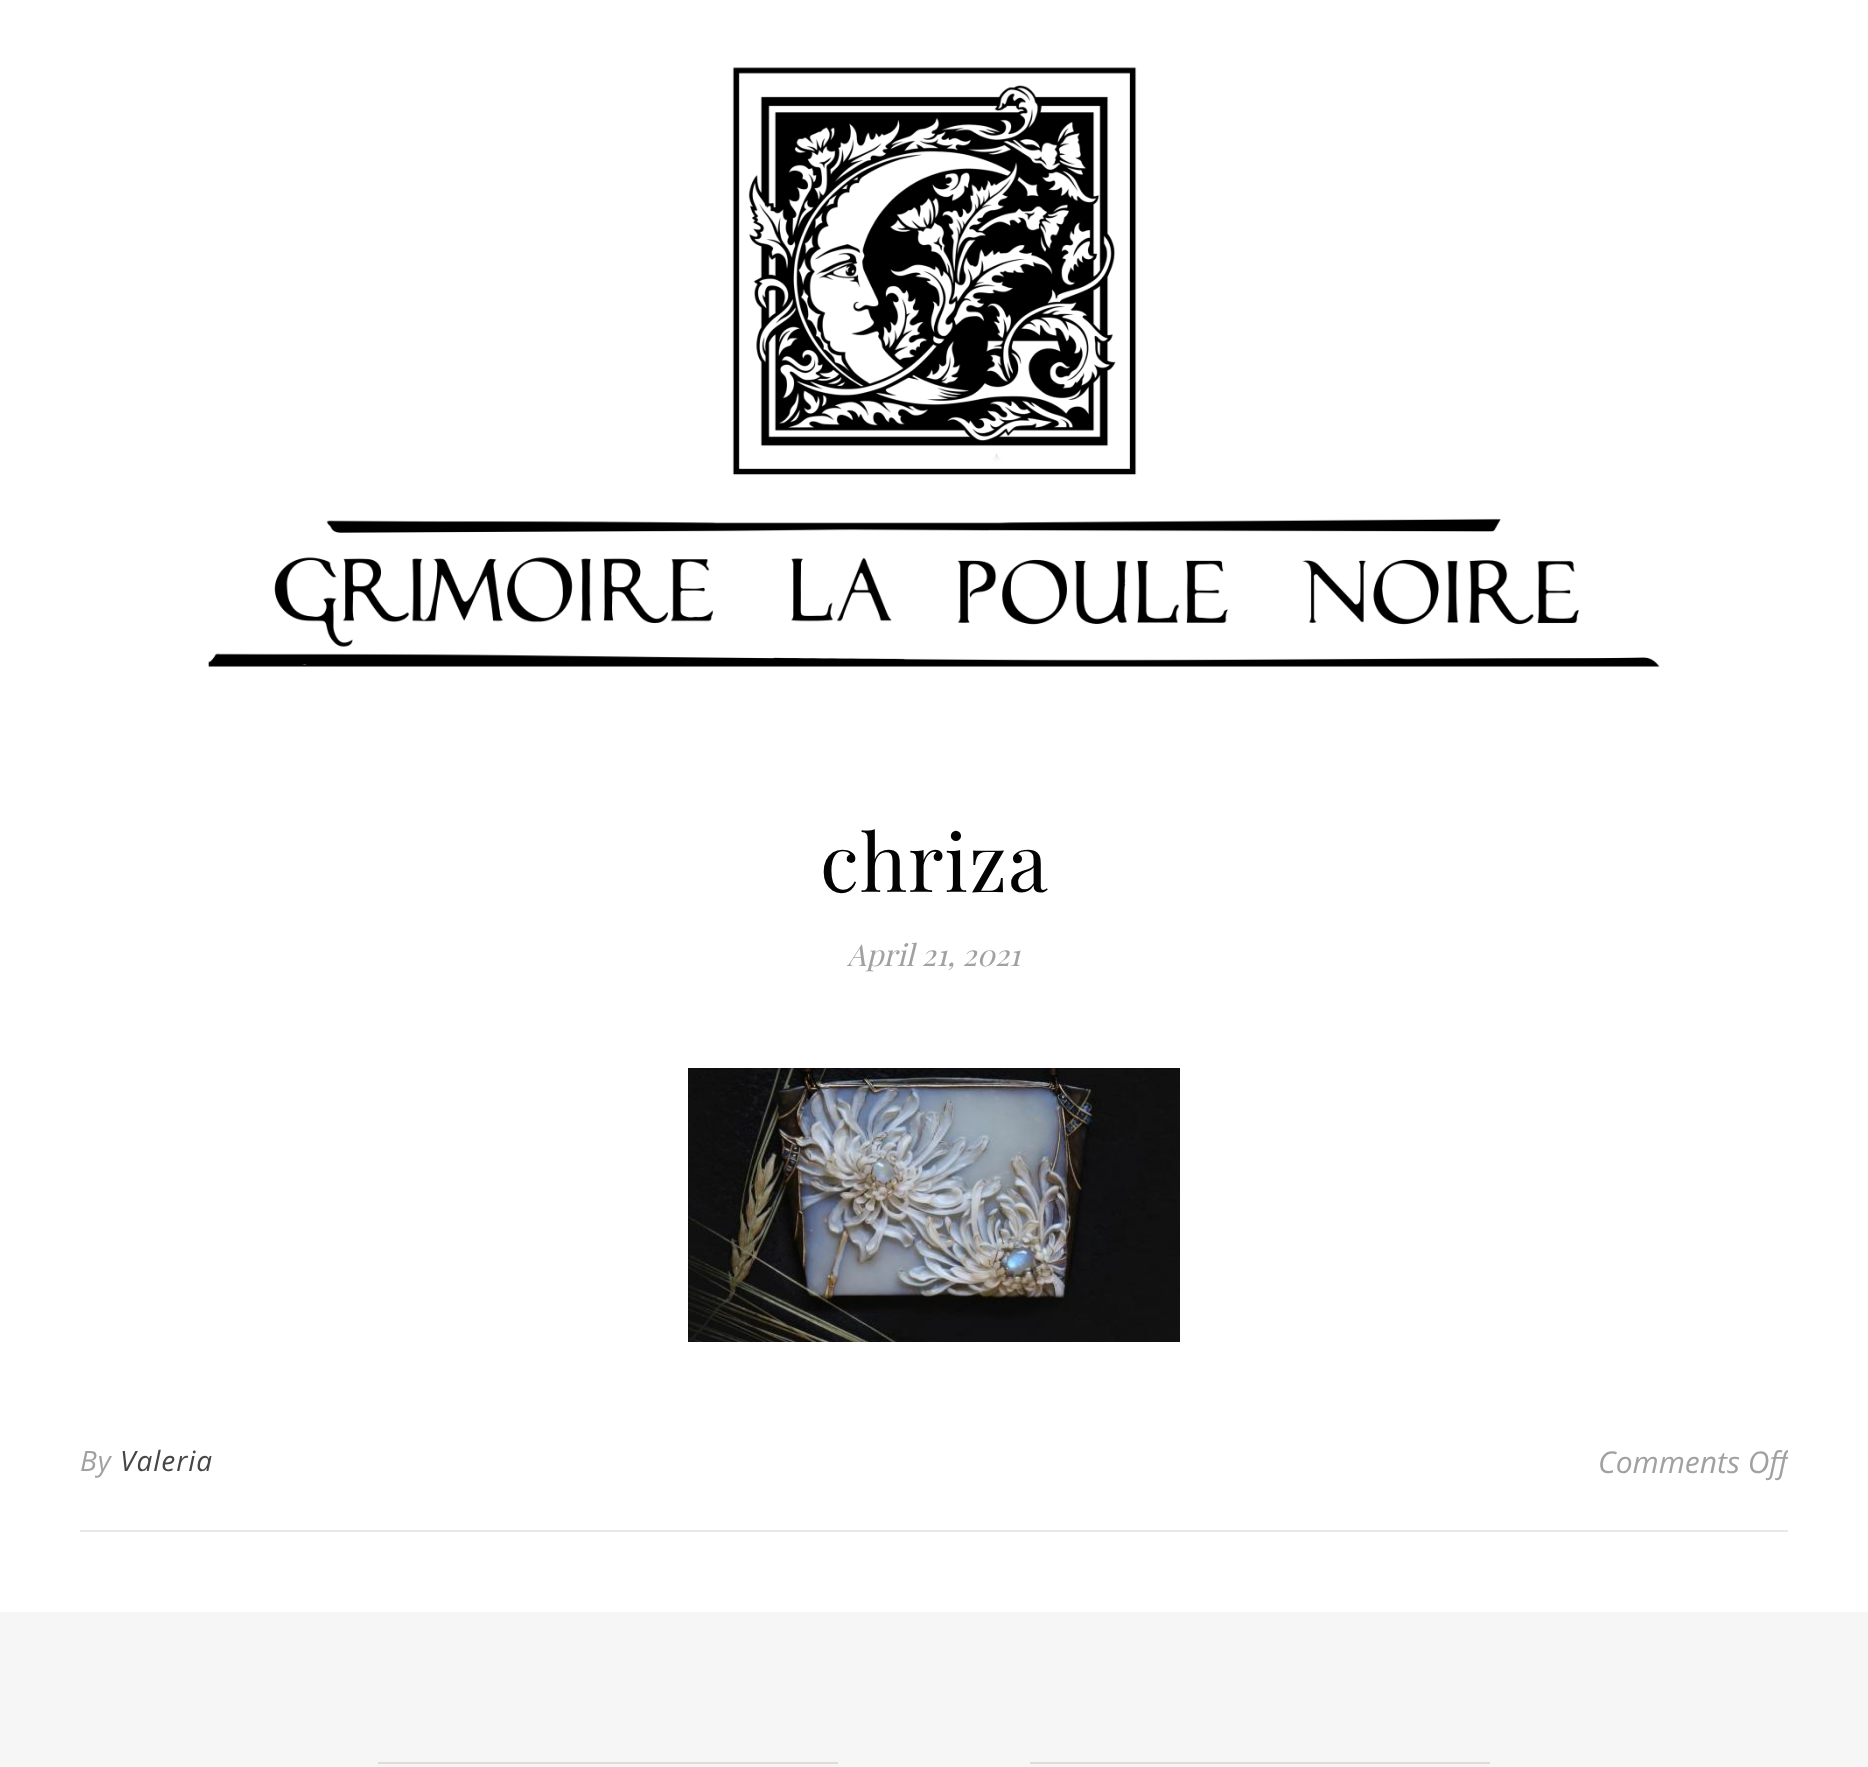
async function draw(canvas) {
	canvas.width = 1868;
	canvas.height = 1767;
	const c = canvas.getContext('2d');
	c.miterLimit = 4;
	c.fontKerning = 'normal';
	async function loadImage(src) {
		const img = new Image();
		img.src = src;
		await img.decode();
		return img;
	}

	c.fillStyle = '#fff';
	c.fillRect(0, 0, 1868, 1767);
	c.drawImage(await loadImage('img1.png'), 208, 67, 1452, 600);
	c.letterSpacing = '1px';
	c.font = '80px Playfair Display';
	c.fillStyle = '#030303';
	c.fillText('chriza', 820, 892);
	c.letterSpacing = '0px';
	c.font = 'italic 30px Playfair Display';
	c.fillStyle = '#a1a1a1';
	c.fillText('April 21, 2021', 847, 966);
	c.drawImage(await loadImage('img2.png'), 688, 1068, 492, 274);
	c.fillStyle = '#e8e8e8';
	c.fillRect(80, 1530, 1708, 2);
	c.letterSpacing = '1px';
	c.font = 'italic 28px Open Sans';
	c.fillStyle = '#a1a1a1';
	c.fillText('By', 80, 1471);
	c.fillStyle = '#464646';
	c.fillText('Valeria', 120, 1471);
	c.save();
	c.beginPath();
	c.rect(80, 1390, 1708, 140);
	c.clip();
	c.letterSpacing = '0px';
	c.font = 'italic 30px Open Sans';
	c.fillStyle = '#a1a1a1';
	c.fillText('Comments Off', 1598, 1473);
	c.restore();
	for (const [x, y, w, h, color] of [
		[0, 1612, 1868, 155, '#f6f6f6'],
		[378, 1762, 460, 2, '#e0dbdb'],
		[1030, 1762, 460, 2, '#e0dbdb'],
	]) {
		c.fillStyle = color;
		c.fillRect(x, y, w, h);
	}
}

draw(document.querySelector('canvas'));
